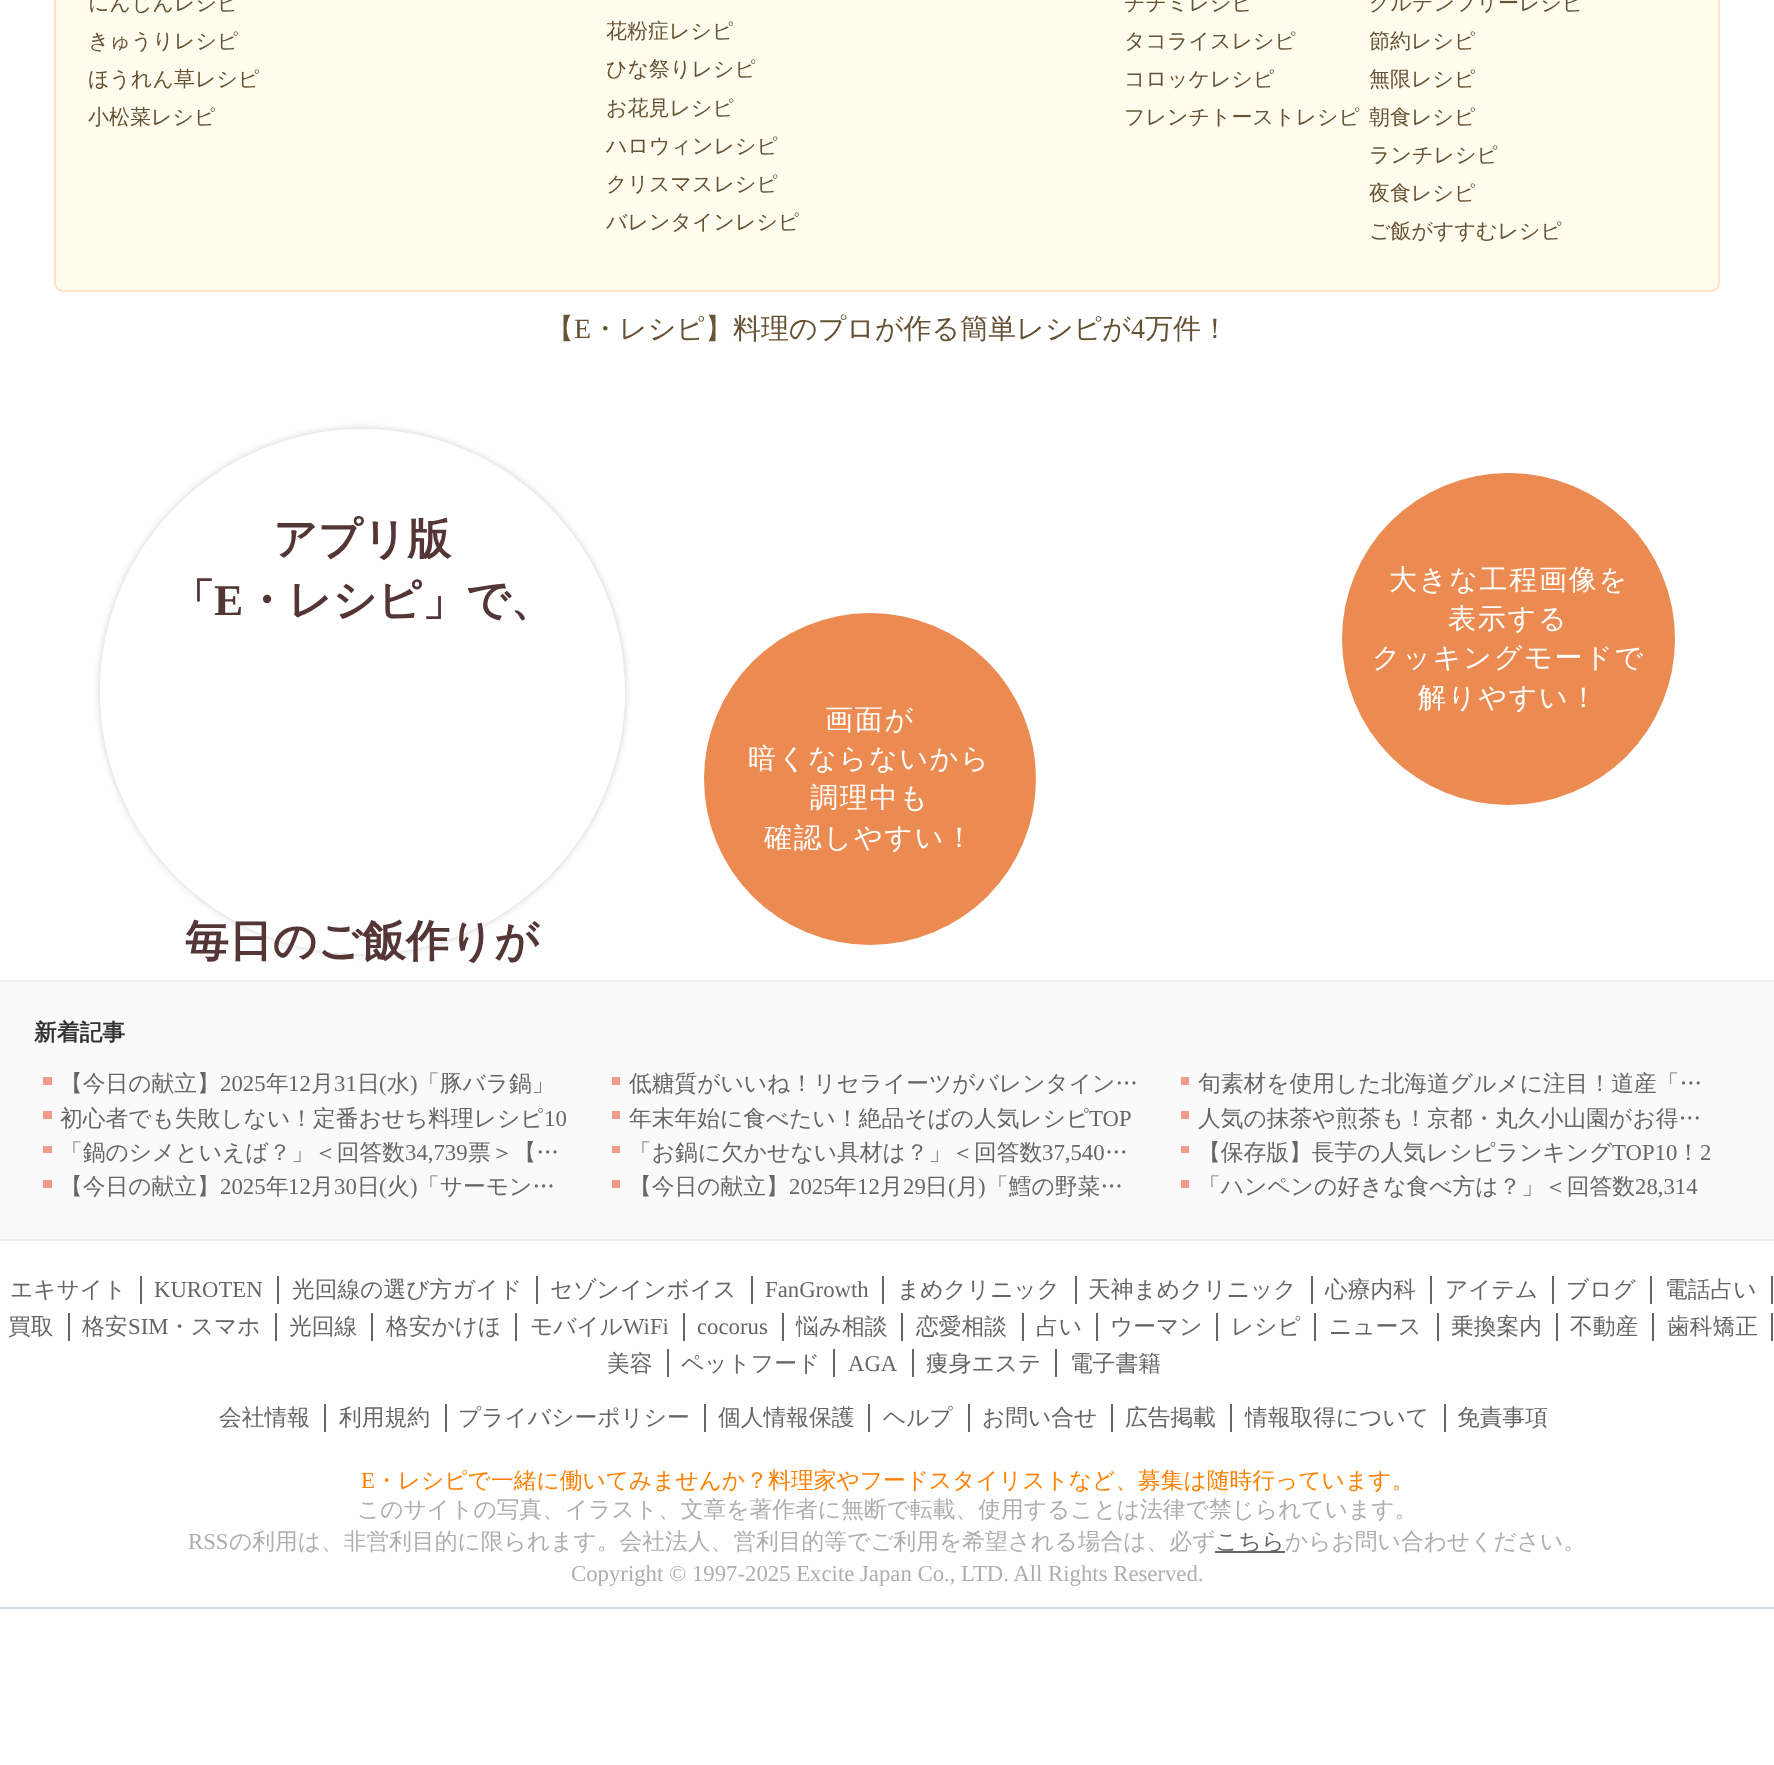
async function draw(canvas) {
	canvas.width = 1774;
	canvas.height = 1765;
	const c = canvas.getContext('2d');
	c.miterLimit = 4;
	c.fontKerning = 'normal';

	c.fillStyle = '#fff';
	c.fillRect(0, 0, 1774, 1765);
	c.fillStyle = '#fffcee';
	c.beginPath();
	c.roundRect(55, -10, 1664, 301, 8);
	c.fill();
	c.strokeStyle = '#ffe2c4';
	c.lineWidth = 2;
	c.stroke();
	c.font = '500 21px WenQuanYi Zen Hei';
	c.fillStyle = '#655134';
	for (const [text, x, y] of [
		['にんじんレシピ', 88, 10],
		['きゅうりレシピ', 88, 48],
		['ほうれん草レシピ', 88, 86],
		['小松菜レシピ', 88, 124],
		['花粉症レシピ', 606, 38],
		['ひな祭りレシピ', 606, 76],
		['お花見レシピ', 606, 115],
		['ハロウィンレシピ', 606, 153],
		['クリスマスレシピ', 606, 191],
		['バレンタインレシピ', 606, 229],
		['チヂミレシピ', 1124, 10],
		['タコライスレシピ', 1124, 48],
		['コロッケレシピ', 1124, 86],
		['フレンチトーストレシピ', 1124, 124],
		['グルテンフリーレシピ', 1369, 10],
		['節約レシピ', 1369, 48],
		['無限レシピ', 1369, 86],
		['朝食レシピ', 1369, 124],
		['ランチレシピ', 1369, 162],
		['夜食レシピ', 1369, 200],
		['ご飯がすすむレシピ', 1369, 238],
	]) {
		c.fillText(text, x, y);
	}
	c.font = '500 28px WenQuanYi Zen Hei';
	c.fillText('【', 546, 338);
	c.font = '28px Liberation Serif';
	c.fillText('E', 574, 338);
	c.font = '500 28px WenQuanYi Zen Hei';
	c.fillText('・レシピ】料理のプロが作る簡単レシピが', 591, 338);
	c.font = '28px Liberation Serif';
	c.fillText('4', 1131, 338);
	c.font = '500 28px WenQuanYi Zen Hei';
	c.fillText('万件！', 1145, 338);
	c.save();
	c.beginPath();
	c.moveTo(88, 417);
	c.lineTo(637, 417);
	c.lineTo(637, 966);
	c.lineTo(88, 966);
	c.closePath();
	c.moveTo(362.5, 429);
	c.bezierCurveTo(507.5, 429, 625, 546.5, 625, 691.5);
	c.bezierCurveTo(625, 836.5, 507.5, 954, 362.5, 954);
	c.bezierCurveTo(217.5, 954, 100, 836.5, 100, 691.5);
	c.bezierCurveTo(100, 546.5, 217.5, 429, 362.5, 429);
	c.closePath();
	c.clip('evenodd');
	c.fillStyle = '#00000033';
	c.filter = 'blur(3.5px)';
	c.beginPath();
	c.roundRect(100, 429, 525, 525, 262.5);
	c.fill();
	c.filter = 'none';
	c.restore();
	c.fillStyle = '#ffffff99';
	c.beginPath();
	c.arc(362.5, 691.5, 262.5, 0, 2 * Math.PI);
	c.fill();
	c.font = 'bold 43.75px WenQuanYi Zen Hei';
	c.fillStyle = '#543636';
	c.fillText('アプリ版', 273, 554);
	c.fillText('「', 171, 615);
	c.font = 'bold 43.75px Liberation Serif';
	c.fillText('E', 214, 615);
	c.font = 'bold 43.75px WenQuanYi Zen Hei';
	c.fillText('・レシピ」で、', 244, 615);
	c.fillText('毎日のご飯作りが', 185, 956);
	c.fillStyle = '#ec8b51';
	c.beginPath();
	c.roundRect(1342, 473, 333, 332, 166);
	c.fill();
	c.letterSpacing = '1.75px';
	c.font = '500 28px WenQuanYi Zen Hei';
	c.fillStyle = '#fff';
	for (const [text, x, y] of [
		['大きな工程画像を', 1389, 589],
		['表示する', 1448, 628],
		['クッキングモードで', 1372, 667],
		['解りやすい！', 1418, 707],
	]) {
		c.fillText(text, x, y);
	}
	c.fillStyle = '#ec8b51';
	c.beginPath();
	c.arc(870, 779, 166, 0, 2 * Math.PI);
	c.fill();
	c.fillStyle = '#fff';
	for (const [text, x, y] of [
		['画面が', 825, 729],
		['暗くならないから', 748, 768],
		['調理中も', 810, 807],
		['確認しやすい！', 764, 847],
	]) {
		c.fillText(text, x, y);
	}
	for (const [x, y, w, h, color] of [
		[0, 982, 1774, 257, '#fafafa'],
		[0, 980, 1774, 2, '#eee'],
		[0, 1239, 1774, 2, '#eee'],
	]) {
		c.fillStyle = color;
		c.fillRect(x, y, w, h);
	}
	c.letterSpacing = '0px';
	c.font = 'bold 22.75px WenQuanYi Zen Hei';
	c.fillStyle = '#333';
	c.fillText('新着記事', 34, 1040);
	c.fillStyle = '#f29b8a';
	c.fillRect(43, 1077, 9, 8);
	c.font = '500 22.75px WenQuanYi Zen Hei';
	c.fillStyle = '#666';
	c.fillText('【今日の献立】', 60, 1091);
	c.font = '22.75px Liberation Serif';
	c.fillText('2025', 220, 1091);
	c.font = '500 22.75px WenQuanYi Zen Hei';
	c.fillText('年', 266, 1091);
	c.font = '22.75px Liberation Serif';
	c.fillText('12', 288, 1091);
	c.font = '500 22.75px WenQuanYi Zen Hei';
	c.fillText('月', 311, 1091);
	c.font = '22.75px Liberation Serif';
	c.fillText('31', 334, 1091);
	c.font = '500 22.75px WenQuanYi Zen Hei';
	c.fillText('日', 357, 1091);
	c.font = '22.75px Liberation Serif';
	c.fillText('(', 379, 1091);
	c.font = '500 22.75px WenQuanYi Zen Hei';
	c.fillText('水', 387, 1091);
	c.font = '22.75px Liberation Serif';
	c.fillText(')', 410, 1091);
	c.font = '500 22.75px WenQuanYi Zen Hei';
	c.fillText('「豚バラ鍋」', 417, 1091);
	c.fillStyle = '#f29b8a';
	c.fillRect(43, 1111, 9, 8);
	c.fillStyle = '#666';
	c.fillText('初心者でも失敗しない！定番おせち料理レシピ', 60, 1126);
	c.font = '22.75px Liberation Serif';
	c.fillText('10', 544, 1126);
	c.fillStyle = '#f29b8a';
	c.fillRect(43, 1146, 9, 7);
	c.font = '500 22.75px WenQuanYi Zen Hei';
	c.fillStyle = '#666';
	c.fillText('「鍋のシメといえば？」＜回答数', 60, 1160);
	c.font = '22.75px Liberation Serif';
	c.fillText('34,739', 405, 1160);
	c.wordSpacing = '-1px';
	c.font = '500 22.75px WenQuanYi Zen Hei';
	c.fillText('票＞【…', 468, 1160);
	c.fillStyle = '#f29b8a';
	c.fillRect(43, 1180, 9, 8);
	c.wordSpacing = '0px';
	c.fillStyle = '#666';
	c.fillText('【今日の献立】', 60, 1194);
	c.font = '22.75px Liberation Serif';
	c.fillText('2025', 220, 1194);
	c.font = '500 22.75px WenQuanYi Zen Hei';
	c.fillText('年', 266, 1194);
	c.font = '22.75px Liberation Serif';
	c.fillText('12', 288, 1194);
	c.font = '500 22.75px WenQuanYi Zen Hei';
	c.fillText('月', 311, 1194);
	c.font = '22.75px Liberation Serif';
	c.fillText('30', 334, 1194);
	c.font = '500 22.75px WenQuanYi Zen Hei';
	c.fillText('日', 357, 1194);
	c.font = '22.75px Liberation Serif';
	c.fillText('(', 379, 1194);
	c.font = '500 22.75px WenQuanYi Zen Hei';
	c.fillText('火', 387, 1194);
	c.font = '22.75px Liberation Serif';
	c.fillText(')', 410, 1194);
	c.font = '500 22.75px WenQuanYi Zen Hei';
	c.fillText('「サーモン…', 417, 1194);
	c.fillStyle = '#f29b8a';
	c.fillRect(612, 1077, 8, 8);
	c.fillStyle = '#666';
	c.fillText('低糖質がいいね！リセライーツがバレンタイン…', 629, 1091);
	c.fillStyle = '#f29b8a';
	c.fillRect(612, 1111, 8, 8);
	c.fillStyle = '#666';
	c.fillText('年末年始に食べたい！絶品そばの人気レシピ', 629, 1126);
	c.font = '22.75px Liberation Serif';
	c.fillText('TOP', 1089, 1126);
	c.fillStyle = '#f29b8a';
	c.fillRect(612, 1146, 8, 7);
	c.font = '500 22.75px WenQuanYi Zen Hei';
	c.fillStyle = '#666';
	c.fillText('「お鍋に欠かせない具材は？」＜回答数', 629, 1160);
	c.font = '22.75px Liberation Serif';
	c.fillText('37,540', 1042, 1160);
	c.wordSpacing = '-1px';
	c.font = '500 22.75px WenQuanYi Zen Hei';
	c.fillText('…', 1105, 1160);
	c.fillStyle = '#f29b8a';
	c.fillRect(612, 1180, 8, 8);
	c.wordSpacing = '0px';
	c.fillStyle = '#666';
	c.fillText('【今日の献立】', 629, 1194);
	c.font = '22.75px Liberation Serif';
	c.fillText('2025', 789, 1194);
	c.font = '500 22.75px WenQuanYi Zen Hei';
	c.fillText('年', 834, 1194);
	c.font = '22.75px Liberation Serif';
	c.fillText('12', 857, 1194);
	c.font = '500 22.75px WenQuanYi Zen Hei';
	c.fillText('月', 880, 1194);
	c.font = '22.75px Liberation Serif';
	c.fillText('29', 903, 1194);
	c.font = '500 22.75px WenQuanYi Zen Hei';
	c.fillText('日', 925, 1194);
	c.font = '22.75px Liberation Serif';
	c.fillText('(', 948, 1194);
	c.font = '500 22.75px WenQuanYi Zen Hei';
	c.fillText('月', 956, 1194);
	c.font = '22.75px Liberation Serif';
	c.fillText(')', 978, 1194);
	c.wordSpacing = '-1px';
	c.font = '500 22.75px WenQuanYi Zen Hei';
	c.fillText('「鱈の野菜…', 986, 1194);
	c.fillStyle = '#f29b8a';
	c.fillRect(1181, 1077, 8, 8);
	c.wordSpacing = '0px';
	c.fillStyle = '#666';
	c.fillText('旬素材を使用した北海道グルメに注目！道産「…', 1198, 1091);
	c.fillStyle = '#f29b8a';
	c.fillRect(1181, 1111, 8, 8);
	c.fillStyle = '#666';
	c.fillText('人気の抹茶や煎茶も！京都・丸久小山園がお得…', 1198, 1126);
	c.fillStyle = '#f29b8a';
	c.fillRect(1181, 1146, 8, 7);
	c.fillStyle = '#666';
	c.fillText('【保存版】長芋の人気レシピランキング', 1198, 1160);
	c.font = '22.75px Liberation Serif';
	c.fillText('TOP10', 1612, 1160);
	c.font = '500 22.75px WenQuanYi Zen Hei';
	c.fillText('！', 1677, 1160);
	c.font = '22.75px Liberation Serif';
	c.fillText('2', 1700, 1160);
	c.fillStyle = '#f29b8a';
	c.fillRect(1181, 1180, 8, 8);
	c.font = '500 22.75px WenQuanYi Zen Hei';
	c.fillStyle = '#666';
	c.fillText('「ハンペンの好きな食べ方は？」＜回答数', 1198, 1194);
	c.font = '22.75px Liberation Serif';
	c.fillText('28,314', 1635, 1194);
	c.fillRect(140, 1276, 2, 28);
	c.font = '500 22.75px WenQuanYi Zen Hei';
	c.fillText('エキサイト', 10, 1297);
	c.fillRect(277, 1276, 2, 28);
	c.font = '22.75px Liberation Serif';
	c.fillText('KUROTEN', 154, 1297);
	c.fillRect(536, 1276, 2, 28);
	c.font = '500 22.75px WenQuanYi Zen Hei';
	c.fillText('光回線の選び方ガイド', 292, 1297);
	c.fillRect(751, 1276, 2, 28);
	c.fillText('セゾンインボイス', 550, 1297);
	c.fillRect(882, 1276, 2, 28);
	c.font = '22.75px Liberation Serif';
	c.fillText('FanGrowth', 765, 1297);
	c.fillRect(1075, 1276, 2, 28);
	c.font = '500 22.75px WenQuanYi Zen Hei';
	c.fillText('まめクリニック', 897, 1297);
	c.fillRect(1311, 1276, 2, 28);
	c.fillText('天神まめクリニック', 1088, 1297);
	c.fillRect(1430, 1276, 2, 28);
	c.fillText('心療内科', 1325, 1297);
	c.fillRect(1552, 1276, 2, 28);
	c.fillText('アイテム', 1445, 1297);
	c.fillRect(1650, 1276, 2, 28);
	c.fillText('ブログ', 1566, 1297);
	c.fillRect(1771, 1276, 2, 28);
	c.fillText('電話占い', 1665, 1297);
	c.fillRect(68, 1313, 2, 28);
	c.fillText('買取', 8, 1334);
	c.fillRect(275, 1313, 2, 28);
	c.fillText('格安', 82, 1334);
	c.font = '22.75px Liberation Serif';
	c.fillText('SIM', 128, 1334);
	c.font = '500 22.75px WenQuanYi Zen Hei';
	c.fillText('・スマホ', 168, 1334);
	c.fillRect(371, 1313, 2, 28);
	c.fillText('光回線', 289, 1334);
	c.fillRect(515, 1313, 2, 28);
	c.fillText('格安かけほ', 386, 1334);
	c.fillRect(683, 1313, 2, 28);
	c.fillText('モバイル', 530, 1334);
	c.font = '22.75px Liberation Serif';
	c.fillText('WiFi', 623, 1334);
	c.fillRect(782, 1313, 2, 28);
	c.fillText('cocorus', 697, 1334);
	c.fillRect(901, 1313, 2, 28);
	c.font = '500 22.75px WenQuanYi Zen Hei';
	c.fillText('悩み相談', 796, 1334);
	c.fillRect(1022, 1313, 2, 28);
	c.fillText('恋愛相談', 916, 1334);
	c.fillRect(1096, 1313, 2, 28);
	c.fillText('占い', 1036, 1334);
	c.fillRect(1216, 1313, 2, 28);
	c.fillText('ウーマン', 1110, 1334);
	c.fillRect(1314, 1313, 2, 28);
	c.fillText('レシピ', 1231, 1334);
	c.fillRect(1437, 1313, 2, 28);
	c.fillText('ニュース', 1329, 1334);
	c.fillRect(1556, 1313, 2, 28);
	c.fillText('乗換案内', 1451, 1334);
	c.fillRect(1652, 1313, 2, 28);
	c.fillText('不動産', 1570, 1334);
	c.fillRect(1771, 1313, 2, 28);
	c.fillText('歯科矯正', 1667, 1334);
	c.fillRect(667, 1349, 2, 28);
	c.fillText('美容', 607, 1371);
	c.fillRect(833, 1349, 2, 28);
	c.fillText('ペットフード', 681, 1371);
	c.fillRect(912, 1349, 2, 28);
	c.font = '22.75px Liberation Serif';
	c.fillText('AGA', 848, 1371);
	c.fillRect(1055, 1349, 2, 28);
	c.font = '500 22.75px WenQuanYi Zen Hei';
	c.fillText('痩身エステ', 926, 1371);
	c.fillText('電子書籍', 1070, 1371);
	c.fillRect(324, 1404, 2, 28);
	c.fillText('会社情報', 219, 1425);
	c.fillRect(445, 1404, 2, 28);
	c.fillText('利用規約', 339, 1425);
	c.fillRect(704, 1404, 2, 28);
	c.fillText('プライバシーポリシー', 458, 1425);
	c.fillRect(868, 1404, 2, 28);
	c.fillText('個人情報保護', 718, 1425);
	c.fillRect(968, 1404, 2, 28);
	c.fillText('ヘルプ', 883, 1425);
	c.fillRect(1111, 1404, 2, 28);
	c.fillText('お問い合せ', 982, 1425);
	c.fillRect(1230, 1404, 2, 28);
	c.fillText('広告掲載', 1125, 1425);
	c.fillRect(1444, 1404, 2, 28);
	c.fillText('情報取得について', 1245, 1425);
	c.fillText('免責事項', 1457, 1425);
	c.font = '22.75px Liberation Serif';
	c.fillStyle = '#ff8000';
	c.fillText('E', 361, 1488);
	c.font = '500 22.75px WenQuanYi Zen Hei';
	c.fillText('・レシピで一緒に働いてみませんか？料理家やフードスタイリストなど、募集は随時行っています。', 375, 1488);
	c.fillStyle = '#aeaeae';
	c.fillText('このサイトの写真、イラスト、文章を著作者に無断で転載、使用することは法律で禁じられています。', 357, 1517);
	c.font = '22.75px Liberation Serif';
	c.fillText('RSS', 188, 1549);
	c.font = '500 22.75px WenQuanYi Zen Hei';
	c.fillText('の利用は、非営利目的に限られます。会社法人、営利目的等でご利用を希望される場合は、必ず', 229, 1549);
	c.fillStyle = '#666';
	c.fillRect(1215, 1551, 70, 2);
	c.fillText('こちら', 1215, 1549);
	c.fillStyle = '#aeaeae';
	c.fillText('からお問い合わせください。', 1285, 1549);
	c.font = '22.75px Liberation Serif';
	c.fillText('Copyright © 1997-2025 Excite Japan Co., LTD. All Rights Reserved.', 571, 1581);
	c.fillStyle = '#d6dee5';
	c.fillRect(0, 1607, 1774, 2);
}

draw(document.querySelector('canvas'));
